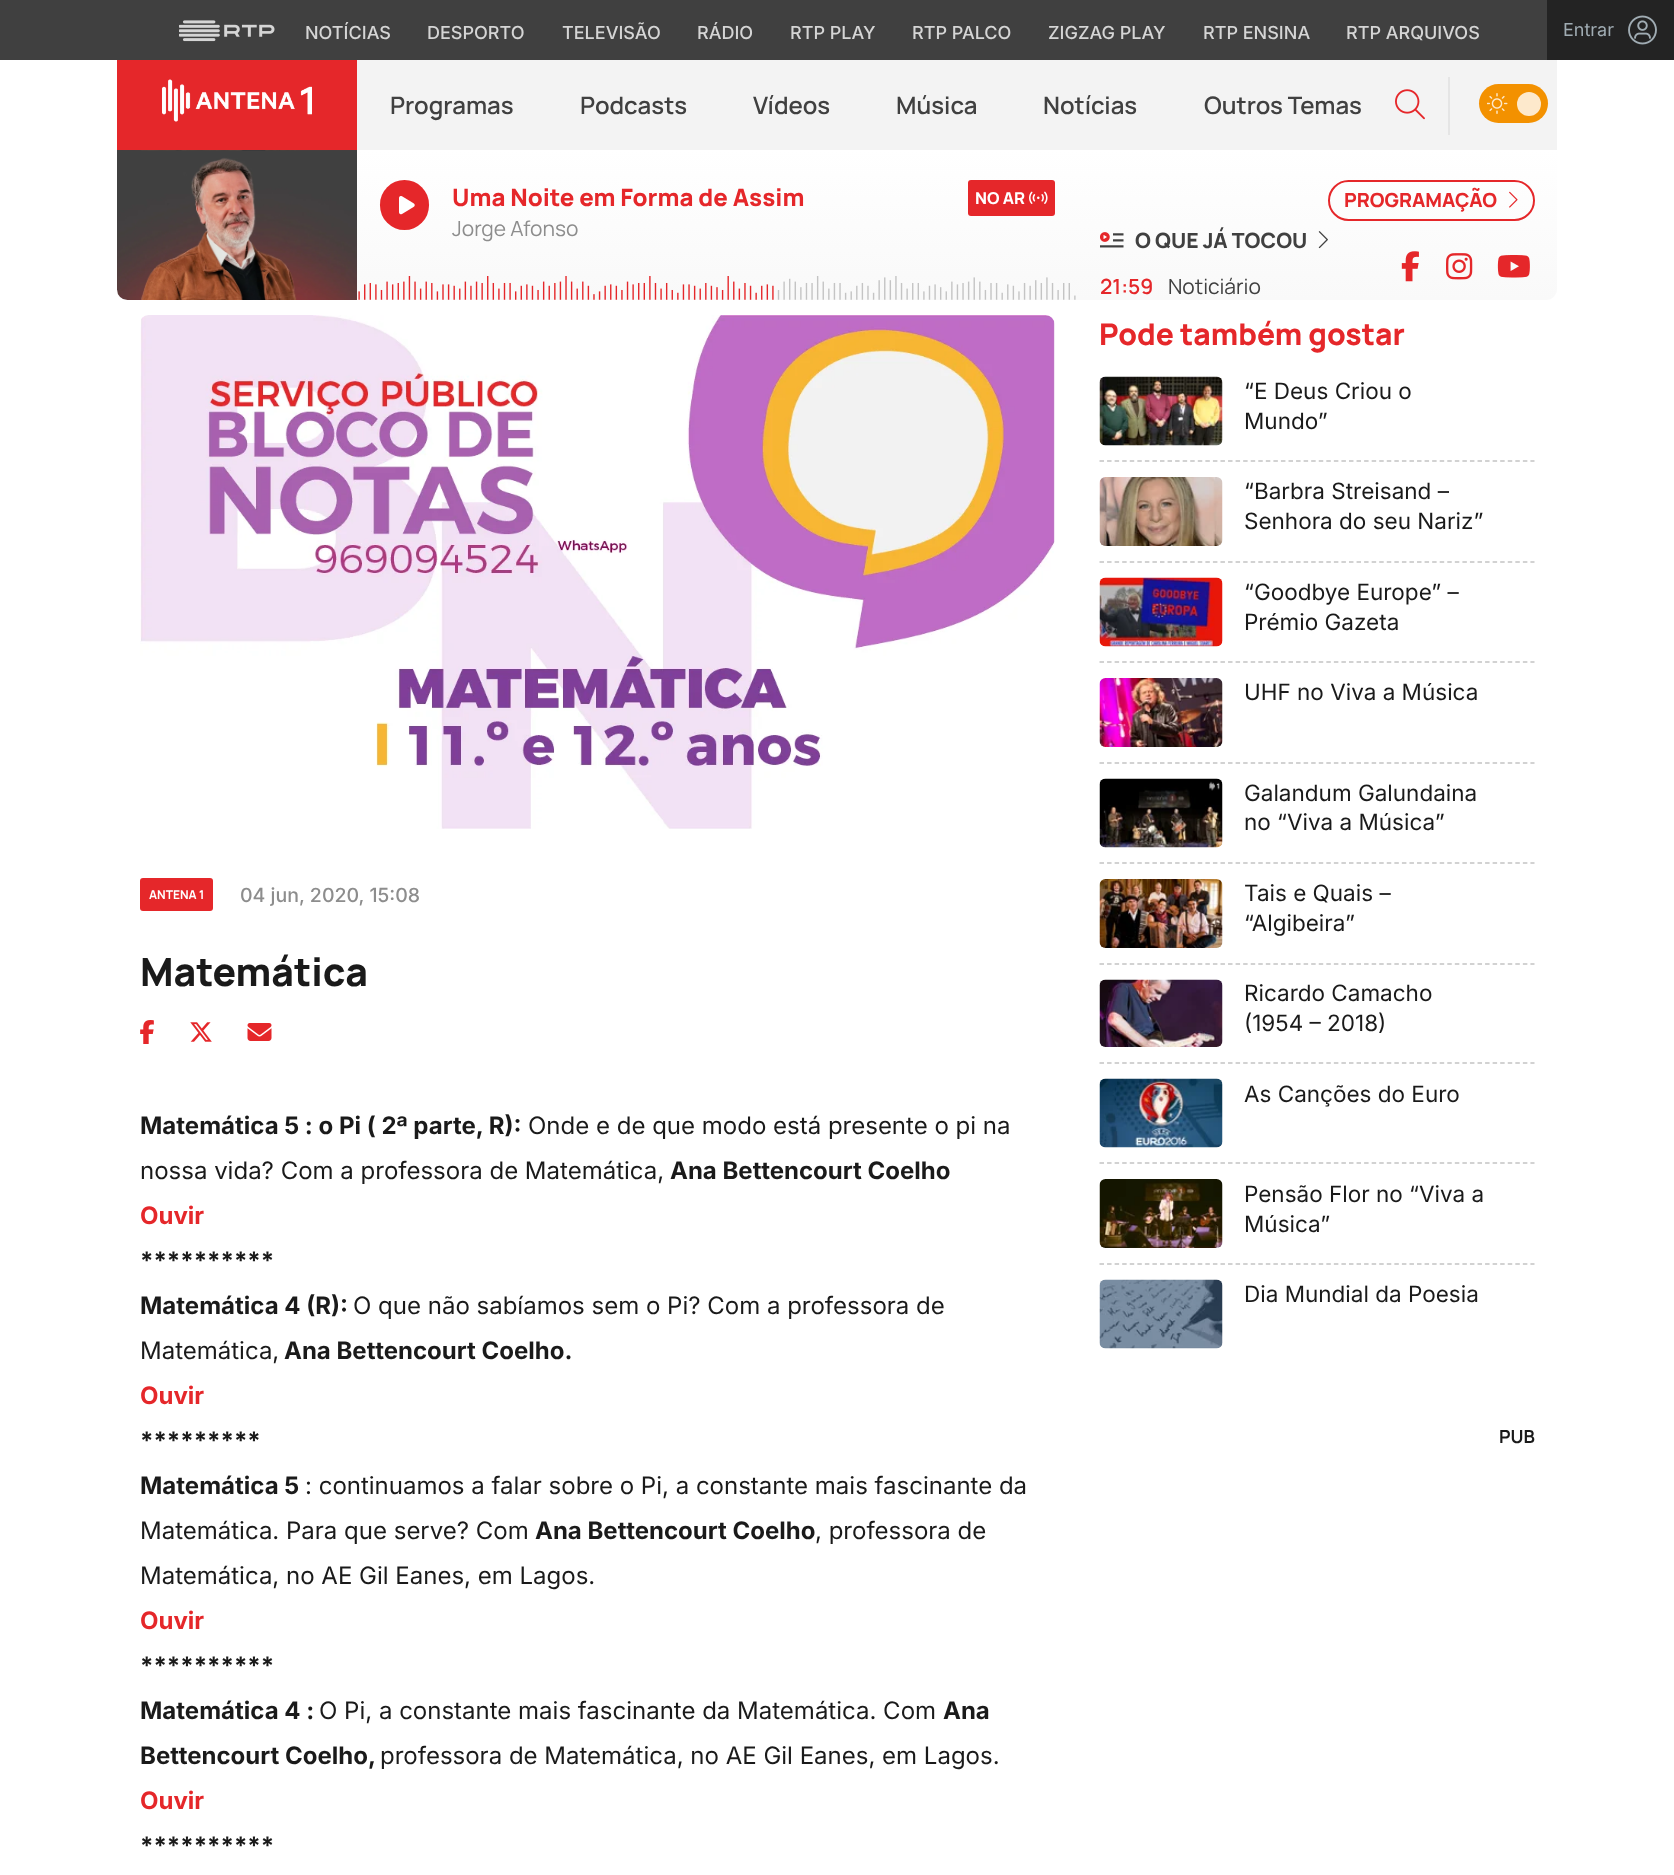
async function draw(canvas) {
	canvas.width = 1674;
	canvas.height = 1875;
	const c = canvas.getContext('2d');
	c.miterLimit = 4;
	c.fontKerning = 'normal';
	async function loadImage(src) {
		const img = new Image();
		img.src = src;
		await img.decode();
		return img;
	}
	let gradient;

	c.fillStyle = '#fff';
	c.fillRect(0, 0, 1674, 1875);
	c.fillStyle = '#404040';
	c.fillRect(0, 0, 1547, 60);
	c.drawImage(await loadImage('img1.png'), 179, 20, 96, 22);
	c.font = '500 18px Inter';
	c.fillStyle = '#d5d5d5';
	for (const [text, x, y] of [
		['NOTÍCIAS', 305, 39],
		['DESPORTO', 427, 39],
		['TELEVISÃO', 562, 39],
		['RÁDIO', 697, 39],
		['RTP PLAY', 790, 39],
		['RTP PALCO', 912, 39],
		['ZIGZAG PLAY', 1048, 39],
		['RTP ENSINA', 1203, 39],
		['RTP ARQUIVOS', 1346, 39],
	]) {
		c.fillText(text, x, y);
	}
	c.fillStyle = '#232323';
	c.fillRect(1547, 0, 127, 60);
	c.font = '18px Inter';
	c.fillStyle = '#a0acb3';
	c.fillText('Entrar', 1563, 36);
	c.drawImage(await loadImage('img2.png'), 1628, 15, 29, 30);
	c.fillStyle = '#f3f3f3';
	c.fillRect(357, 60, 1200, 90);
	c.fillStyle = '#e5272a';
	c.fillRect(117, 60, 240, 90);
	c.drawImage(await loadImage('img3.png'), 162, 79, 150, 43);
	c.font = '600 24px Manrope';
	c.fillStyle = '#404040';
	for (const [text, x, y] of [
		['Programas', 390, 114],
		['Podcasts', 580, 114],
		['Vídeos', 753, 114],
		['Música', 896, 114],
		['Notícias', 1043, 114],
		['Outros Temas', 1204, 114],
	]) {
		c.fillText(text, x, y);
	}
	c.drawImage(await loadImage('img4.png'), 1395, 89, 30, 31);
	c.fillStyle = '#e5e5e5';
	c.fillRect(1448, 77, 2, 58);
	c.fillStyle = '#f39100';
	c.beginPath();
	c.roundRect(1479, 84, 69, 39, 19.5);
	c.fill();
	c.drawImage(await loadImage('img5.png'), 1487, 93, 21, 21);
	c.fillStyle = '#fde9cc';
	c.beginPath();
	c.arc(1529, 104, 12, 0, 2 * Math.PI);
	c.fill();
	gradient = c.createLinearGradient(837, 450, 837, 150);
	gradient.addColorStop(0, '#f3f3f3');
	gradient.addColorStop(1, '#fff');
	c.fillStyle = gradient;
	c.beginPath();
	c.roundRect(117, 150, 1440, 150, [0, 0, 11, 11]);
	c.fill();
	c.drawImage(await loadImage('img6.png'), 117, 150, 240, 150);
	c.fillStyle = '#e5272a';
	c.beginPath();
	c.roundRect(380, 180, 49, 50, 24.5);
	c.fill();
	c.drawImage(await loadImage('img7.png'), 399, 196, 16, 19);
	c.font = '800 24px Manrope';
	c.fillText('Uma Noite em Forma de Assim', 452, 206);
	c.font = '21px Manrope';
	c.fillStyle = '#8d8d8d';
	c.fillText('Jorge Afonso', 452, 236);
	c.fillStyle = '#e5272a';
	c.beginPath();
	c.roundRect(968, 180, 87, 36, 3);
	c.fill();
	c.font = '800 16.5px Manrope';
	c.fillStyle = '#fff';
	c.fillText('NO AR', 975, 204);
	c.drawImage(await loadImage('img8.png'), 1029, 191, 19, 13);
	c.drawImage(await loadImage('img9.png'), 358, 276, 718, 24);
	c.beginPath();
	c.roundRect(1329, 181, 205, 39, 19.5);
	c.strokeStyle = '#e5272a';
	c.lineWidth = 2;
	c.stroke();
	c.font = '800 19.5px Manrope';
	c.fillStyle = '#e5272a';
	c.fillText('PROGRAMAÇÃO', 1344, 207);
	c.drawImage(await loadImage('img10.png'), 1509, 191, 9, 17);
	c.drawImage(await loadImage('img11.png'), 1100, 232, 24, 16);
	c.font = '800 21px Manrope';
	c.fillStyle = '#404040';
	c.fillText('O QUE JÁ TOCOU', 1135, 248);
	c.drawImage(await loadImage('img12.png'), 1318, 231, 10, 18);
	c.drawImage(await loadImage('img13.png'), 1401, 251, 18, 31);
	c.drawImage(await loadImage('img14.png'), 1446, 253, 27, 27);
	c.drawImage(await loadImage('img15.png'), 1497, 255, 33, 23);
	c.font = '600 21px Manrope';
	c.fillStyle = '#e5272a';
	c.fillText('21:59', 1100, 294);
	c.font = '21px Manrope';
	c.fillStyle = '#404040';
	c.fillText('Noticiário', 1168, 294);
	c.drawImage(await loadImage('img16.png'), 140, 315, 915, 514);
	c.fillStyle = '#e5272a';
	c.beginPath();
	c.roundRect(140, 878, 73, 33, 3);
	c.fill();
	c.font = 'bold 12px Manrope';
	c.fillStyle = '#fff';
	c.fillText('ANTENA 1', 149, 899);
	c.font = '500 19.5px Inter';
	c.fillStyle = '#8d8d8d';
	c.fillText('04 jun, 2020, 15:08', 240, 902);
	c.font = '800 39px Manrope';
	c.fillStyle = '#1a1a1a';
	c.fillText('Matemática', 140, 986);
	c.drawImage(await loadImage('img17.png'), 140, 1020, 14, 24);
	c.drawImage(await loadImage('img18.png'), 190, 1022, 22, 20);
	c.drawImage(await loadImage('img19.png'), 247, 1023, 25, 18);
	c.font = 'bold 24px Inter';
	c.fillText('Matemática 5 : o Pi ( 2ª parte, R):', 140, 1134);
	c.font = '24px Inter';
	c.fillText('Onde e de que modo está presente o pi na', 528, 1134);
	c.fillText('nossa vida? Com a professora de Matemática,', 140, 1179);
	c.font = 'bold 24px Inter';
	c.fillText('Ana Bettencourt Coelho', 670, 1179);
	c.fillStyle = '#e5272a';
	c.fillText('Ouvir', 140, 1224);
	c.fillStyle = '#1a1a1a';
	c.fillText('**********', 140, 1269);
	c.fillText('Matemática 4 (R):', 140, 1314);
	c.font = '24px Inter';
	c.fillText('O que não sabíamos sem o Pi? Com a professora de', 353, 1314);
	c.fillText('Matemática,', 140, 1359);
	c.font = 'bold 24px Inter';
	c.fillText('Ana Bettencourt Coelho.', 284, 1359);
	c.fillStyle = '#e5272a';
	c.fillText('Ouvir', 140, 1404);
	c.fillStyle = '#1a1a1a';
	c.fillText('*********', 140, 1449);
	c.fillText('Matemática 5', 140, 1494);
	c.font = '24px Inter';
	c.fillText(': continuamos a falar sobre o Pi, a constante mais fascinante da', 305, 1494);
	c.fillText('Matemática. Para que serve? Com', 140, 1539);
	c.font = 'bold 24px Inter';
	c.fillText('Ana Bettencourt Coelho', 535, 1539);
	c.font = '24px Inter';
	c.fillText(', professora de', 815, 1539);
	c.fillText('Matemática, no AE Gil Eanes, em Lagos.', 140, 1584);
	c.font = 'bold 24px Inter';
	c.fillStyle = '#e5272a';
	c.fillText('Ouvir', 140, 1629);
	c.fillStyle = '#1a1a1a';
	c.fillText('**********', 140, 1674);
	c.fillText('Matemática 4 :', 140, 1719);
	c.font = '24px Inter';
	c.fillText('O Pi, a constante mais fascinante da Matemática. Com', 319, 1719);
	c.font = 'bold 24px Inter';
	c.fillText('Ana', 943, 1719);
	c.fillText('Bettencourt Coelho,', 140, 1764);
	c.font = '24px Inter';
	c.fillText('professora de Matemática, no AE Gil Eanes, em Lagos.', 380, 1764);
	c.font = 'bold 24px Inter';
	c.fillStyle = '#e5272a';
	c.fillText('Ouvir', 140, 1809);
	c.fillStyle = '#1a1a1a';
	c.fillText('**********', 140, 1854);
	c.font = '800 30px Manrope';
	c.fillStyle = '#e5272a';
	c.fillText('Pode também gostar', 1099, 345);
	c.beginPath();
	c.moveTo(1099.5, 461);
	c.lineTo(1534.5, 461);
	c.strokeStyle = '#c4c4c4';
	c.lineWidth = 1.5;
	c.setLineDash([4.5, 3.06]);
	c.stroke();
	c.drawImage(await loadImage('img20.png'), 1099, 376, 124, 70);
	c.font = '22.5px Inter';
	c.fillStyle = '#1a1a1a';
	c.fillText('“E Deus Criou o', 1244, 399);
	c.fillText('Mundo”', 1244, 429);
	c.beginPath();
	c.moveTo(1099.5, 562);
	c.lineTo(1534.5, 562);
	c.stroke();
	c.drawImage(await loadImage('img21.png'), 1099, 477, 124, 69);
	c.fillText('“Barbra Streisand –', 1244, 499);
	c.fillText('Senhora do seu Nariz”', 1244, 529);
	c.beginPath();
	c.moveTo(1099.5, 662);
	c.lineTo(1534.5, 662);
	c.stroke();
	c.drawImage(await loadImage('img22.png'), 1099, 577, 124, 70);
	c.fillText('“Goodbye Europe” –', 1244, 600);
	c.fillText('Prémio Gazeta', 1244, 630);
	c.beginPath();
	c.moveTo(1099.5, 763);
	c.lineTo(1534.5, 763);
	c.stroke();
	c.drawImage(await loadImage('img23.png'), 1099, 678, 124, 69);
	c.fillText('UHF no Viva a Música', 1244, 700);
	c.beginPath();
	c.moveTo(1099.5, 863);
	c.lineTo(1534.5, 863);
	c.stroke();
	c.drawImage(await loadImage('img24.png'), 1099, 778, 124, 70);
	c.fillText('Galandum Galundaina', 1244, 801);
	c.fillText('no “Viva a Música”', 1244, 830);
	c.beginPath();
	c.moveTo(1099.5, 964);
	c.lineTo(1534.5, 964);
	c.stroke();
	c.drawImage(await loadImage('img25.png'), 1099, 879, 124, 69);
	c.fillText('Tais e Quais –', 1244, 901);
	c.fillText('“Algibeira”', 1244, 931);
	c.beginPath();
	c.moveTo(1099.5, 1063);
	c.lineTo(1534.5, 1063);
	c.stroke();
	c.drawImage(await loadImage('img26.png'), 1099, 979, 124, 68);
	c.fillText('Ricardo Camacho', 1244, 1001);
	c.fillText('(1954 – 2018)', 1244, 1031);
	c.beginPath();
	c.moveTo(1099.5, 1163);
	c.lineTo(1534.5, 1163);
	c.stroke();
	c.drawImage(await loadImage('img27.png'), 1099, 1078, 124, 70);
	c.fillText('As Canções do Euro', 1244, 1102);
	c.beginPath();
	c.moveTo(1099.5, 1264);
	c.lineTo(1534.5, 1264);
	c.stroke();
	c.drawImage(await loadImage('img28.png'), 1099, 1179, 124, 69);
	c.fillText('Pensão Flor no “Viva a', 1244, 1202);
	c.fillText('Música”', 1244, 1232);
	c.drawImage(await loadImage('img29.png'), 1099, 1279, 124, 70);
	c.fillText('Dia Mundial da Poesia', 1244, 1302);
	c.font = 'bold 18px Manrope';
	c.fillText('PUB', 1499, 1443);
}

draw(document.querySelector('canvas'));
